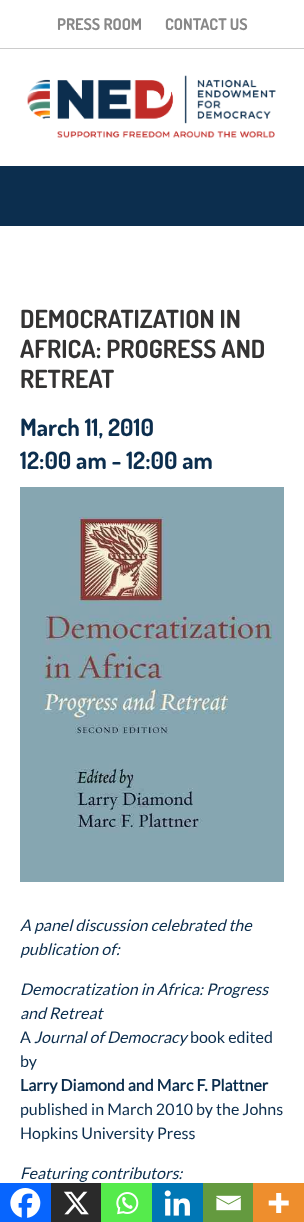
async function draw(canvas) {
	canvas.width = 304;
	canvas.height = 1222;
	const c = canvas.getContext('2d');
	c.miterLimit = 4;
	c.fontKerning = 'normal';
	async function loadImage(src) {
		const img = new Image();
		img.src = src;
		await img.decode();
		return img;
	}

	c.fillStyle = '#fff';
	c.fillRect(0, 0, 304, 1222);
	c.fillStyle = '#ccc';
	c.fillRect(0, 48, 304, 1);
	c.font = 'bold 16px Dosis';
	c.fillStyle = '#888';
	c.fillText('PRESS ROOM', 57, 30);
	c.fillText('CONTACT US', 165, 30);
	c.drawImage(await loadImage('img1.png'), 27, 75, 249, 63);
	c.fillStyle = '#0c2e4e';
	c.fillRect(0, 166, 304, 60);
	c.font = 'bold 25px Dosis';
	c.fillStyle = '#343333';
	for (const [text, x, y] of [
		['DEMOCRATIZATION IN', 20, 328],
		['AFRICA: PROGRESS AND', 20, 358],
		['RETREAT', 20, 388],
	]) {
		c.fillText(text, x, y);
	}
	c.font = 'bold 24px Dosis';
	c.fillStyle = '#0c2e4e';
	c.fillText('March 11, 2010', 20, 436);
	c.fillText('12:00 am - 12:00 am', 20, 469);
	c.drawImage(await loadImage('img2.png'), 20, 487, 264, 395);
	c.font = 'italic 16px Lato';
	for (const [text, x, y] of [
		['A panel discussion celebrated the', 20, 931],
		['publication of:', 20, 955],
		['Democratization in Africa: Progress', 20, 995],
		['and Retreat', 20, 1019],
	]) {
		c.fillText(text, x, y);
	}
	c.font = '16px Lato';
	c.fillText('A', 20, 1043);
	c.font = 'italic 16px Lato';
	c.fillText('Journal of Democracy', 34, 1043);
	c.font = '16px Lato';
	c.fillText('book edited', 190, 1043);
	c.fillText('by', 20, 1067);
	c.font = 'bold 16px Lato';
	c.fillText('Larry Diamond and Marc F. Plattner', 20, 1091);
	c.font = '16px Lato';
	c.fillText('published in March 2010 by the Johns', 20, 1115);
	c.fillText('Hopkins University Press', 20, 1139);
	c.font = 'italic 16px Lato';
	c.fillText('Featuring contributors:', 20, 1179);
	c.fillStyle = '#0765fe';
	c.fillRect(0, 1183, 51, 39);
	c.drawImage(await loadImage('img3.png'), 10, 1188, 31, 30);
	c.fillStyle = '#2a2a2a';
	c.fillRect(51, 1183, 50, 39);
	c.drawImage(await loadImage('img4.png'), 63, 1191, 26, 24);
	c.fillStyle = '#55eb4c';
	c.fillRect(101, 1183, 51, 39);
	c.drawImage(await loadImage('img5.png'), 116, 1192, 23, 23);
	c.fillStyle = '#0077b5';
	c.fillRect(152, 1183, 51, 39);
	c.drawImage(await loadImage('img6.png'), 164, 1190, 26, 26);
	c.fillStyle = '#649a3f';
	c.fillRect(203, 1183, 50, 39);
	c.drawImage(await loadImage('img7.png'), 216, 1195, 25, 16);
	c.fillStyle = '#ee8e2d';
	c.fillRect(253, 1183, 51, 39);
	c.drawImage(await loadImage('img8.png'), 268, 1193, 21, 20);
}

draw(document.querySelector('canvas'));
